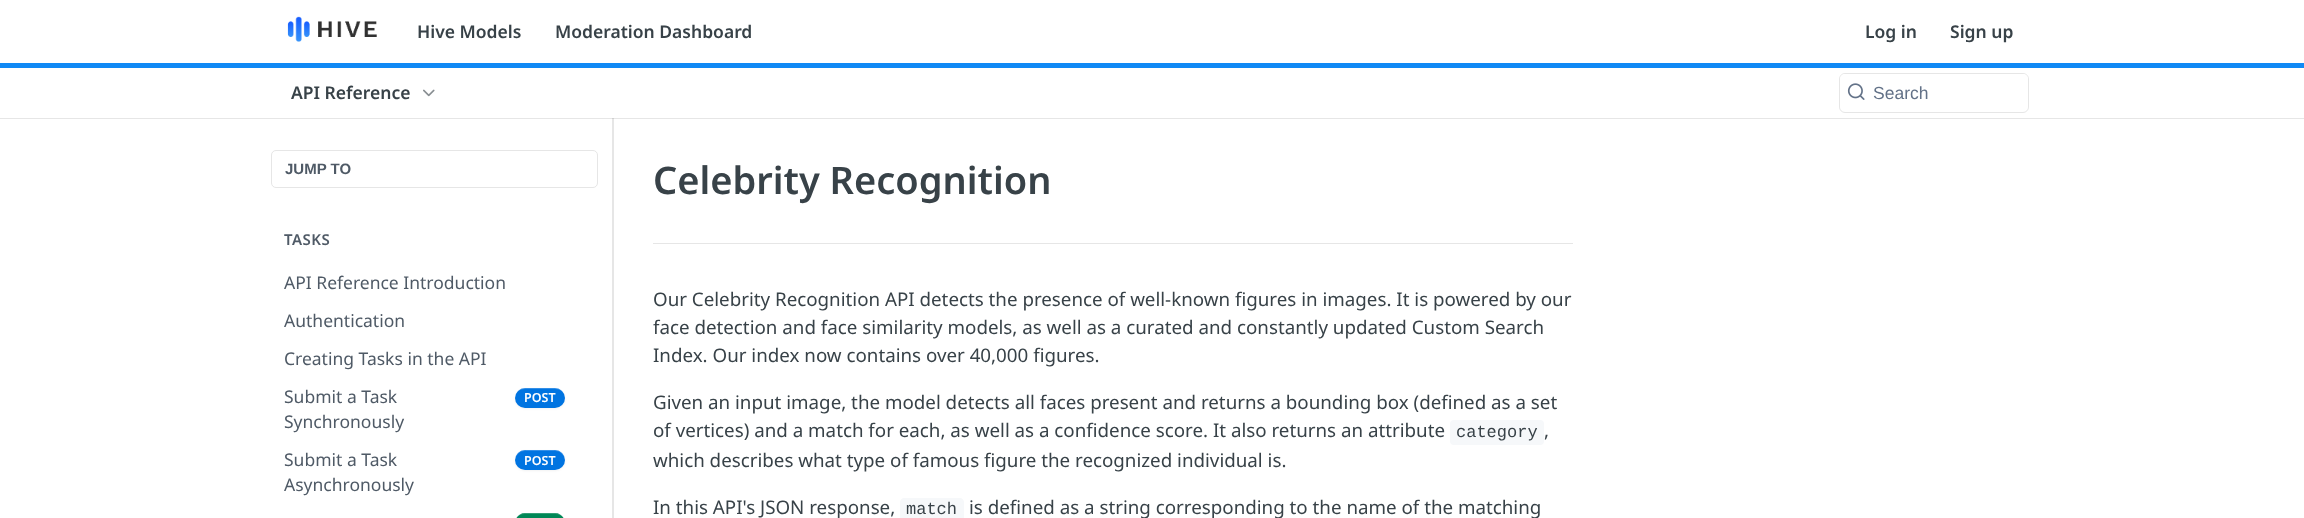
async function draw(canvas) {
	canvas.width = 2304;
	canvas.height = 518;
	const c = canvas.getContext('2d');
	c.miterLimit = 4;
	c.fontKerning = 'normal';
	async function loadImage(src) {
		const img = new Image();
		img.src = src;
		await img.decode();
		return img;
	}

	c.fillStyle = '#fff';
	c.fillRect(0, 0, 2304, 518);
	c.fillStyle = '#e6e6e6';
	c.fillRect(0, 118, 2304, 1);
	c.fillStyle = '#1089f5';
	c.fillRect(0, 63, 2304, 5);
	c.drawImage(await loadImage('img1.png'), 287, 16, 90, 26);
	c.font = '600 17.5px Noto Sans';
	c.fillStyle = '#384248';
	for (const [text, x, y] of [
		['Hive Models', 417, 38],
		['Moderation Dashboard', 555, 38],
		['Log in', 1865, 38],
		['Sign up', 1950, 38],
		['API Reference', 291, 99],
	]) {
		c.fillText(text, x, y);
	}
	c.drawImage(await loadImage('img2.png'), 423, 89, 12, 8);
	c.beginPath();
	c.roundRect(1839.5, 73.5, 189, 39, 5.5);
	c.strokeStyle = '#e6e6e6';
	c.stroke();
	c.fillStyle = '#fff';
	c.beginPath();
	c.roundRect(1840, 74, 188, 37, 5);
	c.fill();
	c.drawImage(await loadImage('img3.png'), 1847, 83, 18, 17);
	c.font = '17.5px Liberation Sans';
	c.fillStyle = '#637288';
	c.fillText('Search', 1873, 99);
	c.fillStyle = '#e6e6e6';
	c.fillRect(612, 118, 2, 400);
	c.fillStyle = '#cfcfcf';
	c.fillRect(612, 118, 2, 1);
	c.beginPath();
	c.roundRect(271.5, 150.5, 326, 37, 4.5);
	c.stroke();
	c.font = 'bold 15px Liberation Sans';
	c.fillStyle = '#4f5a66';
	c.fillText('JUMP TO', 285, 174);
	c.letterSpacing = '0.5px';
	c.font = '600 15px Noto Sans';
	c.fillText('TASKS', 284, 245);
	c.letterSpacing = '0px';
	c.font = '17.5px Noto Sans';
	for (const [text, x, y] of [
		['API Reference Introduction', 284, 289],
		['Authentication', 284, 327],
		['Creating Tasks in the API', 284, 365],
		['Submit a Task', 284, 403],
		['Synchronously', 284, 428],
	]) {
		c.fillText(text, x, y);
	}
	c.fillStyle = '#0000000d';
	c.filter = 'blur(1px)';
	c.beginPath();
	c.roundRect(515, 389, 50, 20, 10);
	c.fill();
	c.filter = 'none';
	c.fillStyle = '#0074e1';
	c.beginPath();
	c.roundRect(515, 388, 50, 20, 10);
	c.fill();
	c.fillStyle = '#ffffff33';
	c.beginPath();
	c.moveTo(525, 389);
	c.lineTo(555, 389);
	c.bezierCurveTo(561, 389, 565, 393, 565, 398);
	c.bezierCurveTo(566, 385, 548, 388, 540, 388);
	c.bezierCurveTo(532, 388, 514, 385, 515, 398);
	c.bezierCurveTo(515, 393, 519, 389, 525, 389);
	c.closePath();
	c.fill();
	c.font = '600 12.5px Noto Sans';
	c.fillStyle = '#fff';
	c.fillText('POST', 524, 402);
	c.font = '17.5px Noto Sans';
	c.fillStyle = '#4f5a66';
	c.fillText('Submit a Task', 284, 466);
	c.fillText('Asynchronously', 284, 491);
	c.fillStyle = '#0000000d';
	c.filter = 'blur(1px)';
	c.beginPath();
	c.roundRect(515, 451, 50, 20, 10);
	c.fill();
	c.filter = 'none';
	c.fillStyle = '#0074e1';
	c.beginPath();
	c.roundRect(515, 450, 50, 20, 10);
	c.fill();
	c.fillStyle = '#ffffff33';
	c.beginPath();
	c.moveTo(525, 451);
	c.lineTo(555, 451);
	c.bezierCurveTo(561, 451, 565, 456, 565, 461);
	c.bezierCurveTo(566, 447, 548, 450, 540, 450);
	c.bezierCurveTo(532, 450, 514, 447, 515, 461);
	c.bezierCurveTo(515, 456, 519, 451, 525, 451);
	c.closePath();
	c.fill();
	c.font = '600 12.5px Noto Sans';
	c.fillStyle = '#fff';
	c.fillText('POST', 524, 465);
	c.fillStyle = '#008756';
	c.beginPath();
	c.moveTo(525, 513);
	c.lineTo(555, 513);
	c.bezierCurveTo(560.5, 513, 565, 517.5, 565, 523);
	c.lineTo(565, 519);
	c.lineTo(515, 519);
	c.lineTo(515, 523);
	c.bezierCurveTo(515, 517.5, 519.5, 513, 525, 513);
	c.closePath();
	c.fill();
	c.fillStyle = '#ffffff33';
	c.beginPath();
	c.moveTo(525, 514);
	c.lineTo(555, 514);
	c.bezierCurveTo(561, 514, 565, 518, 565, 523);
	c.bezierCurveTo(566, 510, 548, 513, 540, 513);
	c.bezierCurveTo(532, 513, 514, 510, 515, 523);
	c.bezierCurveTo(515, 518, 519, 514, 525, 514);
	c.closePath();
	c.fill();
	c.fillStyle = '#e6e6e6';
	c.fillRect(653, 243, 920, 1);
	c.font = '600 38px Noto Sans';
	c.fillStyle = '#384248';
	c.fillText('Celebrity Recognition', 653, 194);
	c.font = '18.75px Noto Sans';
	for (const [text, x, y] of [
		['Our Celebrity Recognition API detects the presence of well-known figures in images. It is powered by our', 653, 306],
		['face detection and face similarity models, as well as a curated and constantly updated Custom Search', 653, 334],
		['Index. Our index now contains over 40,000 figures.', 653, 362],
		['Given an input image, the model detects all faces present and returns a bounding box (defined as a set', 653, 409],
		['of vertices) and a match for each, as well as a confidence score. It also returns an attribute', 653, 437],
	]) {
		c.fillText(text, x, y);
	}
	c.fillStyle = '#f6f8fa';
	c.beginPath();
	c.roundRect(1450, 420, 94, 25, 4);
	c.fill();
	c.font = '17px Liberation Mono';
	c.fillStyle = '#384248';
	c.fillText('category', 1456, 437);
	c.font = '18.75px Noto Sans';
	for (const [text, x, y] of [
		[',', 1544, 437],
		['which describes what type of famous figure the recognized individual is.', 653, 467],
		['In this API\'s JSON response,', 653, 514],
	]) {
		c.fillText(text, x, y);
	}
	c.fillStyle = '#f6f8fa';
	c.beginPath();
	c.moveTo(904, 498);
	c.lineTo(960, 498);
	c.bezierCurveTo(962, 498, 964, 500, 964, 502);
	c.lineTo(964, 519);
	c.lineTo(900, 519);
	c.lineTo(900, 502);
	c.bezierCurveTo(900, 500, 902, 498, 904, 498);
	c.closePath();
	c.fill();
	c.font = '17px Liberation Mono';
	c.fillStyle = '#384248';
	c.fillText('match', 906, 514);
	c.font = '18.75px Noto Sans';
	c.fillText('is defined as a string corresponding to the name of the matching', 969, 514);
}

draw(document.querySelector('canvas'));
